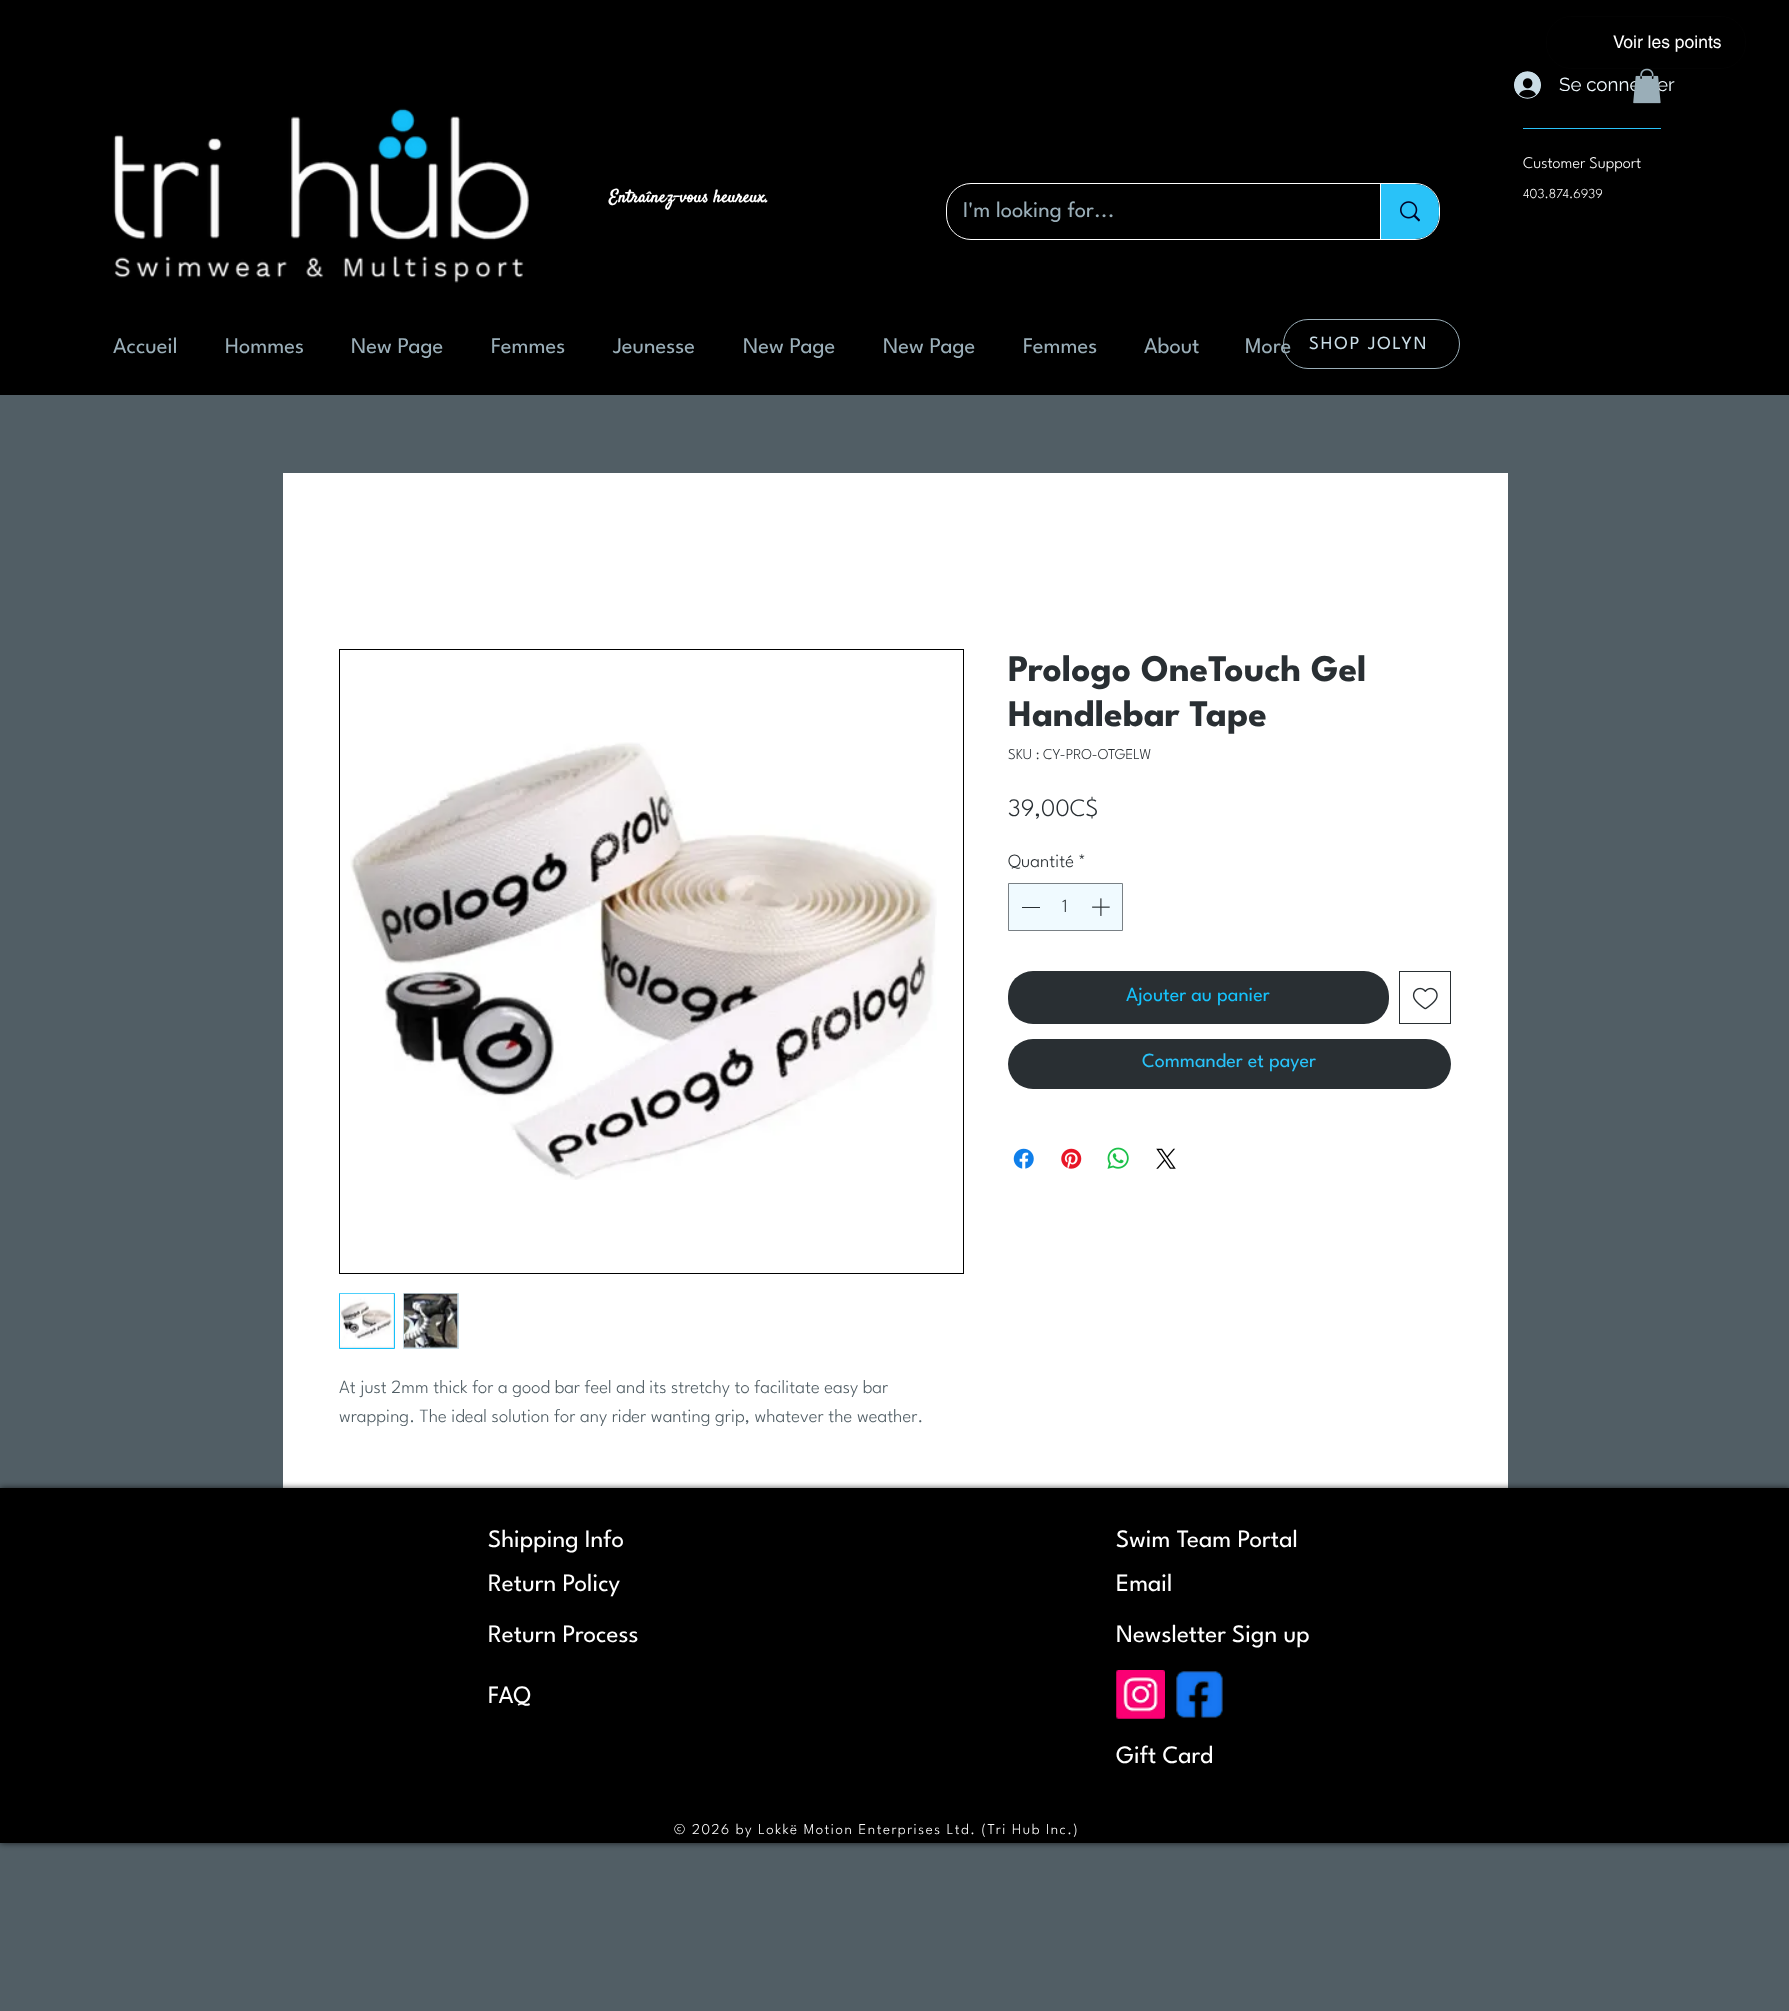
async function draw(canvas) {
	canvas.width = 1789;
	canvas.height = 2011;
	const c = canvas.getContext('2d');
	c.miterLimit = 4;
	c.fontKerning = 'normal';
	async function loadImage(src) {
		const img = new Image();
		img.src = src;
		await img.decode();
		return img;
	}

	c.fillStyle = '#515e65';
	c.fillRect(0, 0, 1789, 2011);
	c.fillStyle = '#000';
	c.fillRect(0, 0, 1789, 395);
	c.beginPath();
	c.roundRect(1546.5, 16.5, 199, 52, 24.5);
	c.strokeStyle = '#030303';
	c.stroke();
	c.font = '17.5px helvetica';
	c.fillStyle = '#fff';
	c.fillText('Voir les points', 1613, 48);
	c.font = '18.75px Raleway';
	c.fillStyle = '#f0faff';
	c.fillText('Se conne', 1559, 91);
	c.fillText('er', 1657, 91);
	c.drawImage(await loadImage('img1.png'), 1633, 68, 28, 36);
	c.drawImage(await loadImage('img2.png'), 1514, 71, 27, 28);
	c.drawImage(await loadImage('img3.png'), 113, 108, 417, 175);
	c.fillStyle = '#29c2f8';
	c.fillRect(1523, 128, 138, 1);
	c.font = '100 16.25px League Spartan';
	c.fillStyle = '#fff';
	c.fillText('Customer Support', 1523, 168);
	c.font = 'bold 17.5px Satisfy';
	c.fillText('Entraînez-vous heureux.', 609, 202);
	c.beginPath();
	c.roundRect(946.5, 183.5, 493, 56, 24.5);
	c.strokeStyle = '#fff';
	c.stroke();
	c.font = '22.5px League Spartan';
	c.fillStyle = '#9aaeb8';
	c.fillText('I\'m looking for...', 963, 217);
	c.fillStyle = '#29c2f8';
	c.beginPath();
	c.roundRect(1380, 184, 59, 55, [0, 24, 24, 0]);
	c.fill();
	c.fillStyle = '#fff';
	c.fillRect(1380, 184, 1, 55);
	c.drawImage(await loadImage('img4.png'), 1400, 201, 20, 21);
	c.font = '100 13.75px League Spartan';
	c.fillText('403.874.6939', 1523, 198);
	c.font = '22.5px League Spartan';
	c.fillStyle = '#9aaeb8';
	for (const [text, x, y] of [
		['Accueil', 113, 353],
		['Hommes', 225, 353],
		['New Page', 351, 353],
		['Femmes', 491, 353],
		['Jeunesse', 613, 353],
		['New Page', 743, 353],
		['New Page', 883, 353],
		['Femmes', 1023, 353],
		['About', 1144, 353],
	]) {
		c.fillText(text, x, y);
	}
	c.beginPath();
	c.roundRect(1283.5, 319.5, 176, 49, 24.5);
	c.strokeStyle = '#9aaeb8';
	c.stroke();
	c.fillText('More', 1245, 353);
	c.letterSpacing = '1.9px';
	c.font = '18.75px League Spartan';
	c.fillStyle = '#cadde6';
	c.fillText('SHOP JOLYN', 1309, 349);
	c.fillStyle = '#fff';
	c.fillRect(283, 473, 1225, 1015);
	c.letterSpacing = '0px';
	c.font = 'bold 37.5px League Spartan';
	c.fillStyle = '#292f33';
	c.fillText('Prologo OneTouch Gel', 1008, 681);
	c.fillText('Handlebar Tape', 1008, 726);
	c.font = '100 15px League Spartan';
	c.fillText('SKU : CY-PRO-OTGELW', 1008, 759);
	c.font = '100 25px League Spartan';
	c.fillText('39,00C$', 1008, 816);
	c.font = '100 18.75px League Spartan';
	c.fillText('Quantité', 1008, 867);
	c.fillText('*', 1078, 867);
	c.fillStyle = '#f0faff';
	c.beginPath();
	c.rect(1008.5, 883.5, 114, 47);
	c.fill();
	c.strokeStyle = '#798085';
	c.stroke();
	c.fillStyle = '#292f33';
	c.fillRect(1022, 907, 18, 1);
	c.fillText('1', 1062, 912);
	c.drawImage(await loadImage('img5.png'), 1092, 898, 18, 18);
	c.beginPath();
	c.roundRect(1008, 971, 381, 53, 25);
	c.fill();
	c.font = '20px League Spartan';
	c.fillStyle = '#15c1fa';
	c.fillText('Ajouter au panier', 1126, 1001);
	c.strokeStyle = '#292f33';
	c.strokeRect(1399.5, 971.5, 51, 52);
	c.drawImage(await loadImage('img6.png'), 1412, 987, 26, 23);
	c.fillStyle = '#292f33';
	c.beginPath();
	c.roundRect(1008, 1039, 443, 50, 25);
	c.fill();
	c.fillStyle = '#29c2f8';
	c.fillText('Commander et payer', 1142, 1067);
	c.drawImage(await loadImage('img7.png'), 1013, 1148, 21, 21);
	c.drawImage(await loadImage('img8.png'), 1061, 1148, 21, 21);
	c.drawImage(await loadImage('img9.png'), 1107, 1147, 22, 22);
	c.drawImage(await loadImage('img10.png'), 1156, 1148, 20, 21);
	c.strokeStyle = '#000';
	c.strokeRect(339.5, 649.5, 624, 624);
	c.drawImage(await loadImage('img11.png'), 350, 742, 587, 438);
	c.fillStyle = '#cadde6';
	c.beginPath();
	c.rect(339.5, 1293.5, 55, 55);
	c.fill();
	c.strokeStyle = '#15c1fa';
	c.stroke();
	c.drawImage(await loadImage('img12.png'), 340, 1293, 54, 55);
	c.fillRect(403, 1293, 56, 56);
	c.drawImage(await loadImage('img13.png'), 403, 1293, 55, 55);
	c.font = '100 18.75px League Spartan';
	c.fillStyle = '#515e65';
	c.fillText('At just 2mm thick for a good bar feel and its stretchy to facilitate easy bar', 339, 1393);
	c.fillText('wrapping. The ideal solution for any rider wanting grip, whatever the weather.', 339, 1422);
	c.fillStyle = '#000000b3';
	c.filter = 'blur(3px)';
	c.beginPath();
	c.rect(0, 1488, 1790, 355);
	c.fill();
	c.filter = 'none';
	c.fillStyle = '#000';
	c.fillRect(0, 1488, 1789, 355);
	c.font = '25px League Spartan';
	c.fillStyle = '#fff';
	for (const [text, x, y] of [
		['Shipping Info', 488, 1547],
		['Swim Team Portal', 1116, 1547],
		['Return Policy', 488, 1591],
		['Email', 1116, 1591],
		['Return Process', 488, 1642],
		['Newsletter Sign up', 1116, 1642],
		['FAQ', 488, 1703],
	]) {
		c.fillText(text, x, y);
	}
	c.drawImage(await loadImage('img14.png'), 1116, 1670, 49, 49);
	c.drawImage(await loadImage('img15.png'), 1176, 1671, 47, 47);
	c.fillText('Gift Card', 1116, 1763);
	c.letterSpacing = '1.5px';
	c.font = '100 15px League Spartan';
	c.fillText('© 2026 by Lokkë Motion Enterprises Ltd. (Tri Hub Inc.)', 674, 1834);
}

draw(document.querySelector('canvas'));
